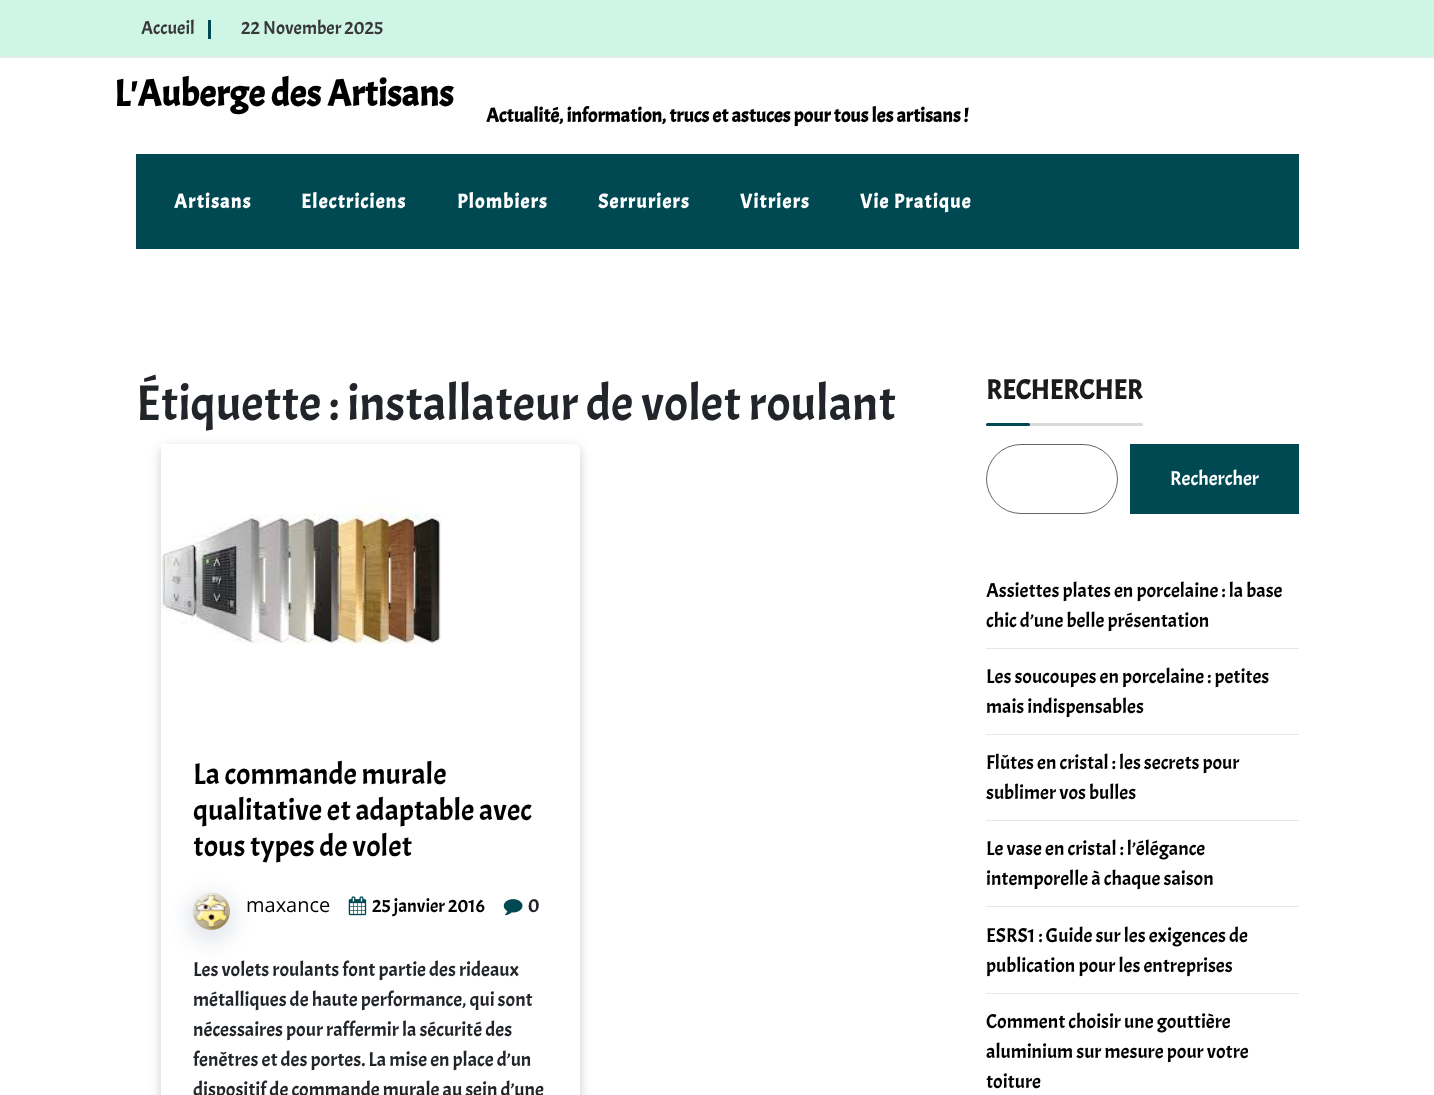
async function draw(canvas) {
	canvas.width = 1434;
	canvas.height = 1095;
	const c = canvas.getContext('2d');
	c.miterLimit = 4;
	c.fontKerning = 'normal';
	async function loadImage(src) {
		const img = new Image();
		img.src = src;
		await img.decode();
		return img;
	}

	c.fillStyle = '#fff';
	c.fillRect(0, 0, 1434, 1095);
	c.fillStyle = '#cff5e7';
	c.fillRect(0, 0, 1434, 58);
	c.fillStyle = '#ebe8e8';
	c.fillRect(0, 56, 1434, 1);
	c.font = '18.75px Acme';
	c.fillStyle = '#383838';
	c.fillText('Accueil', 141, 34);
	c.fillStyle = '#004953';
	c.fillRect(208, 20, 3, 19);
	c.fillStyle = '#383838';
	c.fillText('22 November 2025', 241, 34);
	c.font = 'bold 37.5px Acme';
	c.fillStyle = '#000';
	c.fillText('L\'Auberge des Artisans', 114, 106);
	c.font = 'bold 20px Acme';
	c.fillText('Actualité, information, trucs et astuces pour tous les artisans !', 486, 122);
	c.fillStyle = '#004953';
	c.fillRect(136, 154, 1163, 95);
	c.letterSpacing = '1.25px';
	c.fillStyle = '#fff';
	for (const [text, x, y] of [
		['Artisans', 174, 208],
		['Electriciens', 301, 208],
		['Plombiers', 457, 208],
		['Serruriers', 598, 208],
		['Vitriers', 740, 208],
		['Vie Pratique', 860, 208],
	]) {
		c.fillText(text, x, y);
	}
	c.save();
	c.beginPath();
	c.moveTo(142, 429);
	c.lineTo(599, 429);
	c.lineTo(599, 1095);
	c.lineTo(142, 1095);
	c.closePath();
	c.moveTo(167, 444);
	c.lineTo(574, 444);
	c.bezierCurveTo(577.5, 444, 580, 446.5, 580, 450);
	c.lineTo(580, 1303);
	c.bezierCurveTo(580, 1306.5, 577.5, 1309, 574, 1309);
	c.lineTo(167, 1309);
	c.bezierCurveTo(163.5, 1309, 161, 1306.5, 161, 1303);
	c.lineTo(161, 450);
	c.bezierCurveTo(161, 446.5, 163.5, 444, 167, 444);
	c.closePath();
	c.clip('evenodd');
	c.fillStyle = '#00000033';
	c.filter = 'blur(6px)';
	c.beginPath();
	c.roundRect(161, 448, 419, 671, 6);
	c.fill();
	c.filter = 'none';
	c.restore();
	c.letterSpacing = '0px';
	c.font = '50px Acme';
	c.fillStyle = '#212529';
	c.fillText('Étiquette : installateur de volet roulant', 136, 420);
	c.drawImage(await loadImage('img1.png'), 161, 444, 281, 281);
	c.font = '30px Acme';
	c.fillStyle = '#000';
	for (const [text, x, y] of [
		['La commande murale', 193, 784],
		['qualitative et adaptable avec', 193, 820],
		['tous types de volet', 193, 856],
	]) {
		c.fillText(text, x, y);
	}
	c.fillStyle = '#0021551a';
	c.filter = 'blur(9.5px)';
	c.beginPath();
	c.roundRect(186, 893, 50, 50, 25);
	c.fill();
	c.filter = 'none';
	c.drawImage(await loadImage('img2.png'), 192, 892, 38, 38);
	c.font = '20px Open Sans';
	c.fillStyle = '#000';
	c.fillText('maxance', 246, 912);
	c.drawImage(await loadImage('img3.png'), 348, 896, 19, 20);
	c.font = '18.75px Acme';
	c.fillText('25 janvier 2016', 372, 912);
	c.drawImage(await loadImage('img4.png'), 503, 899, 20, 17);
	c.font = '20px Acme';
	c.fillStyle = '#212529';
	for (const [text, x, y] of [
		['0', 528, 912],
		['Les volets roulants font partie des rideaux', 193, 976],
		['métalliques de haute performance, qui sont', 193, 1006],
		['nécessaires pour raffermir la sécurité des', 193, 1036],
		['fenêtres et des portes. La mise en place d’un', 193, 1066],
		['dispositif de commande murale au sein d’une', 193, 1096],
	]) {
		c.fillText(text, x, y);
	}
	c.font = 'bold 27.5px Acme';
	c.fillStyle = '#1c1b1b';
	c.fillText('RECHERCHER', 986, 399);
	c.fillStyle = '#dadada';
	c.beginPath();
	c.roundRect(986, 423, 157, 3, 1.5);
	c.fill();
	c.fillStyle = '#004953';
	c.beginPath();
	c.roundRect(986, 423, 44, 3, 1.5);
	c.fill();
	c.beginPath();
	c.roundRect(986.5, 444.5, 131, 69, 34.5);
	c.strokeStyle = '#666';
	c.stroke();
	c.fillRect(1130, 444, 169, 70);
	c.font = '20px Acme';
	c.fillStyle = '#fff';
	c.fillText('Rechercher', 1170, 485);
	c.fillStyle = '#e6e6e6';
	c.fillRect(986, 648, 313, 1);
	c.fillStyle = '#000';
	c.fillText('Assiettes plates en porcelaine : la base', 986, 597);
	c.fillText('chic d’une belle présentation', 986, 627);
	c.fillStyle = '#e6e6e6';
	c.fillRect(986, 734, 313, 1);
	c.fillStyle = '#000';
	c.fillText('Les soucoupes en porcelaine : petites', 986, 683);
	c.fillText('mais indispensables', 986, 713);
	c.fillStyle = '#e6e6e6';
	c.fillRect(986, 820, 313, 1);
	c.fillStyle = '#000';
	c.fillText('Flûtes en cristal : les secrets pour', 986, 769);
	c.fillText('sublimer vos bulles', 986, 799);
	c.fillStyle = '#e6e6e6';
	c.fillRect(986, 906, 313, 1);
	c.fillStyle = '#000';
	c.fillText('Le vase en cristal : l’élégance', 986, 855);
	c.fillText('intemporelle à chaque saison', 986, 885);
	c.fillStyle = '#e6e6e6';
	c.fillRect(986, 993, 313, 1);
	c.fillStyle = '#000';
	for (const [text, x, y] of [
		['ESRS1 : Guide sur les exigences de', 986, 942],
		['publication pour les entreprises', 986, 972],
		['Comment choisir une gouttière', 986, 1028],
		['aluminium sur mesure pour votre', 986, 1058],
		['toiture', 986, 1088],
	]) {
		c.fillText(text, x, y);
	}
}

draw(document.querySelector('canvas'));
